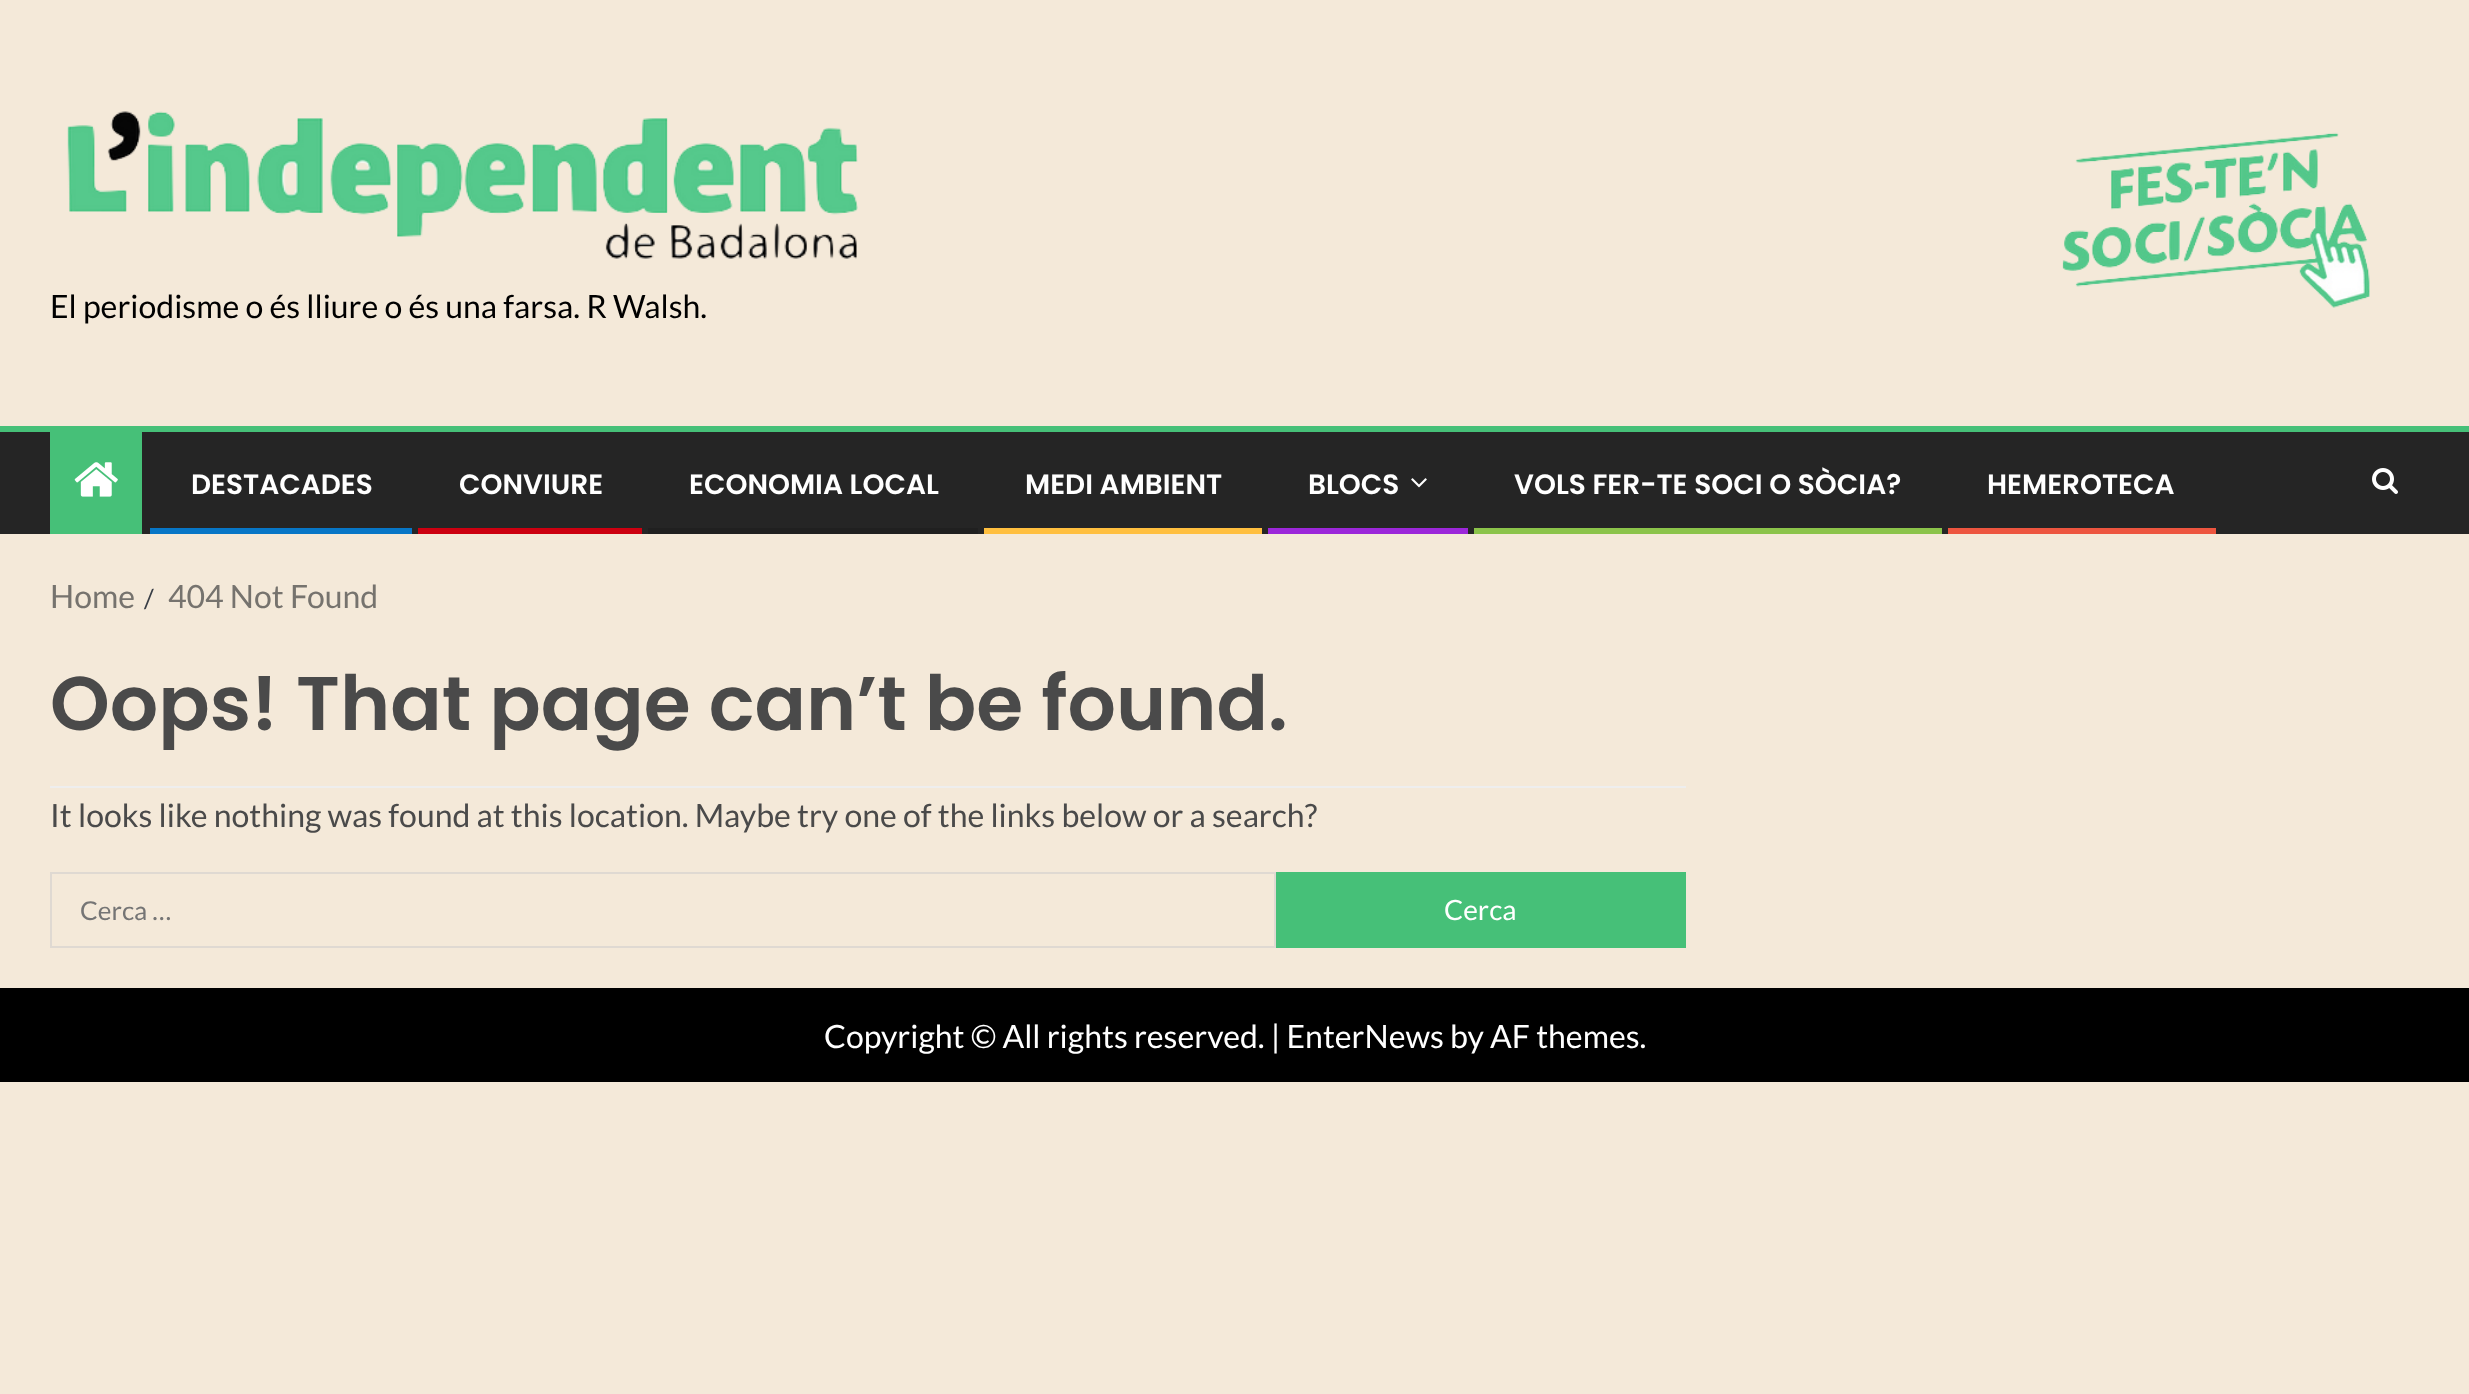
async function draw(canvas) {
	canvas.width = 2469;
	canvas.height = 1394;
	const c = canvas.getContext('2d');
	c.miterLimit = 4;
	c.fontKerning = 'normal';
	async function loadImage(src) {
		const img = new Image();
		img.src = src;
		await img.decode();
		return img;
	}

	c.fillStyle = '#f4e9d9';
	c.fillRect(0, 0, 2469, 1394);
	c.drawImage(await loadImage('img1.png'), 67, 111, 791, 148);
	c.font = '32px Lato';
	c.fillStyle = '#000';
	c.fillText('El periodisme o és lliure o és una farsa. R Walsh.', 50, 318);
	c.drawImage(await loadImage('img2.png'), 2062, 132, 308, 176);
	for (const [x, y, w, h, color] of [
		[0, 432, 2469, 102, '#252525'],
		[0, 426, 2469, 6, '#46c078'],
		[50, 432, 92, 102, '#46c078'],
	]) {
		c.fillStyle = color;
		c.fillRect(x, y, w, h);
	}
	c.drawImage(await loadImage('img3.png'), 74, 462, 44, 35);
	c.font = '600 28px Poppins';
	c.fillStyle = '#fff';
	c.fillText('DESTACADES', 191, 494);
	c.fillStyle = '#0776c6';
	c.fillRect(150, 528, 262, 6);
	c.fillStyle = '#fff';
	c.fillText('CONVIURE', 459, 494);
	c.fillStyle = '#cc0010';
	c.fillRect(418, 528, 224, 6);
	c.fillStyle = '#fff';
	c.fillText('ECONOMIA LOCAL', 689, 494);
	c.fillStyle = '#202020';
	c.fillRect(648, 528, 330, 6);
	c.fillStyle = '#fff';
	c.fillText('MEDI AMBIENT', 1025, 494);
	c.fillStyle = '#ffbf3f';
	c.fillRect(984, 528, 278, 6);
	c.fillStyle = '#fff';
	c.fillText('BLOCS', 1308, 494);
	c.drawImage(await loadImage('img4.png'), 1411, 478, 16, 10);
	c.fillStyle = '#9c27d9';
	c.fillRect(1268, 528, 200, 6);
	c.fillStyle = '#fff';
	c.fillText('VOLS FER-TE SOCI O SÒCIA?', 1514, 494);
	c.fillStyle = '#8bc34a';
	c.fillRect(1474, 528, 468, 6);
	c.fillStyle = '#fff';
	c.fillText('HEMEROTECA', 1987, 494);
	c.fillStyle = '#ed553f';
	c.fillRect(1948, 528, 268, 6);
	c.drawImage(await loadImage('img5.png'), 2372, 468, 26, 26);
	c.font = '32px Lato';
	c.fillStyle = '#76736e';
	c.fillText('Home', 50, 608);
	c.font = '26px Lato';
	c.fillStyle = '#393e46';
	c.fillText('/', 144, 608);
	c.font = '32px Lato';
	c.fillStyle = '#76736e';
	c.fillText('404 Not Found', 168, 608);
	c.fillStyle = '#eee';
	c.fillRect(50, 786, 1636, 2);
	c.font = '600 76px Poppins';
	c.fillStyle = '#4a4a4a';
	c.fillText('Oops! That page can’t be found.', 50, 730);
	c.font = '32px Lato';
	c.fillText('It looks like nothing was found at this location. Maybe try one of the links below or a search?', 50, 827);
	c.strokeStyle = '#dfd9d2';
	c.lineWidth = 2;
	c.strokeRect(51, 873, 1224, 74);
	c.font = '26px Lato';
	c.fillStyle = '#757575';
	c.fillText('Cerca …', 80, 920);
	c.fillStyle = '#46c078';
	c.fillRect(1276, 872, 410, 76);
	c.font = '28px Lato';
	c.fillStyle = '#fff';
	c.fillText('Cerca', 1444, 920);
	c.fillStyle = '#000';
	c.fillRect(0, 988, 2469, 94);
	c.font = '32px Lato';
	c.fillStyle = '#fff';
	c.fillText('Copyright © All rights reserved. | EnterNews by AF themes.', 824, 1048);
}

draw(document.querySelector('canvas'));
